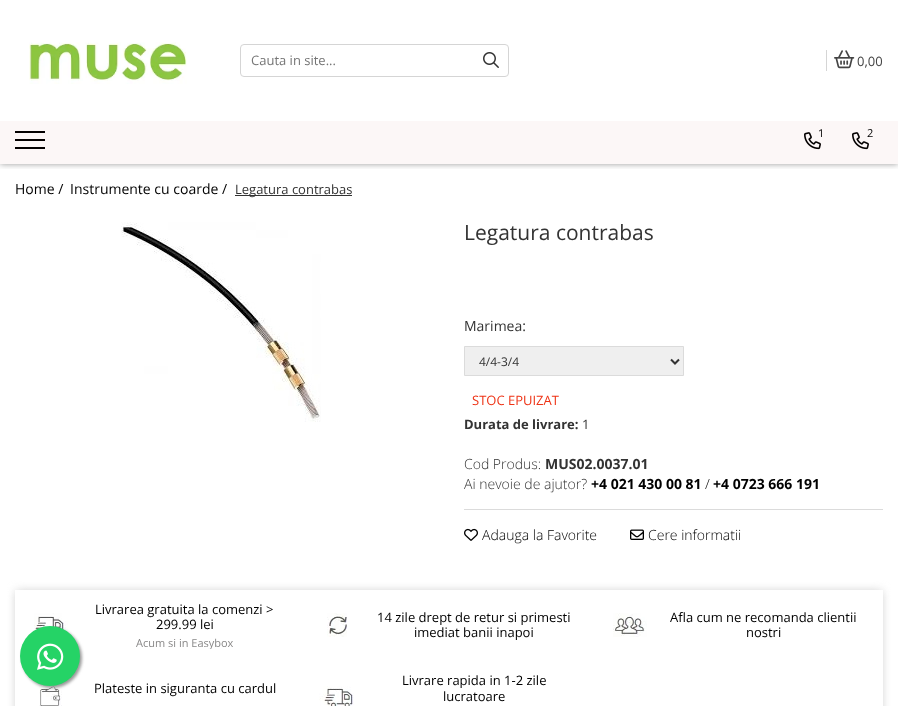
async function draw(canvas) {
	canvas.width = 898;
	canvas.height = 706;
	const c = canvas.getContext('2d');
	c.miterLimit = 4;
	c.fontKerning = 'normal';
	async function loadImage(src) {
		const img = new Image();
		img.src = src;
		await img.decode();
		return img;
	}

	c.fillStyle = '#fff';
	c.fillRect(0, 0, 898, 706);
	c.save();
	c.beginPath();
	c.rect(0, 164, 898, 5);
	c.clip();
	c.fillStyle = '#00000066';
	c.filter = 'blur(3px)';
	c.beginPath();
	c.rect(0, 0, 898, 164);
	c.fill();
	c.filter = 'none';
	c.restore();
	c.drawImage(await loadImage('img1.png'), 29, 42, 158, 42);
	c.beginPath();
	c.roundRect(240.5, 44.5, 268, 32, 3.5);
	c.strokeStyle = '#d5d5d5';
	c.stroke();
	c.font = '13px Open Sans';
	c.fillStyle = '#757575';
	c.fillText('Cauta in site...', 251, 65);
	c.drawImage(await loadImage('img2.png'), 483, 52, 16, 16);
	c.fillStyle = '#d5d5d5';
	c.fillRect(826, 50, 1, 21);
	c.drawImage(await loadImage('img3.png'), 834, 50, 21, 19);
	c.fillStyle = '#444';
	c.fillText('0,00', 857, 66);
	for (const [x, y, w, h, color] of [
		[0, 121, 898, 43, '#fcf7f7'],
		[15, 139, 30, 2, '#030000'],
		[15, 131, 30, 2, '#030000'],
		[15, 147, 30, 2, '#030000'],
	]) {
		c.fillStyle = color;
		c.fillRect(x, y, w, h);
	}
	c.drawImage(await loadImage('img4.png'), 804, 132, 17, 18);
	c.font = '11px Open Sans';
	c.fillStyle = '#000';
	c.fillText('1', 818, 137);
	c.drawImage(await loadImage('img4.png'), 852, 132, 17, 18);
	c.fillText('2', 867, 137);
	c.font = '14px Open Sans';
	c.fillText('Home /', 15, 194);
	c.fillText('Instrumente cu coarde /', 70, 194);
	c.fillStyle = '#333';
	c.fillRect(235, 195, 117, 1);
	c.font = '13px Open Sans';
	c.fillText('Legatura contrabas', 235, 194);
	c.drawImage(await loadImage('img5.png'), 121, 222, 200, 200);
	c.font = '21px Open Sans';
	c.fillText('Legatura contrabas', 464, 240);
	c.font = '14px Open Sans';
	c.fillText('Marimea:', 464, 331);
	c.fillStyle = '#efefef';
	c.beginPath();
	c.rect(464.5, 346.5, 219, 29);
	c.fill();
	c.strokeStyle = '#dbdbdb';
	c.stroke();
	c.beginPath();
	c.moveTo(671, 359.5);
	c.lineTo(675, 363.5);
	c.lineTo(679, 359.5);
	c.strokeStyle = '#333';
	c.lineWidth = 2;
	c.stroke();
	c.font = '12px Open Sans';
	c.fillStyle = '#333';
	c.fillText('4/4-3/4', 479, 366);
	c.font = '13px Open Sans';
	c.fillStyle = '#ee3214';
	c.fillText('STOC EPUIZAT', 472, 405);
	c.font = 'bold 13px Open Sans';
	c.fillStyle = '#333';
	c.fillText('Durata de livrare:', 464, 429);
	c.font = '13px Open Sans';
	c.fillText('1', 582, 429);
	c.font = '300 14px Open Sans';
	c.fillText('Cod Produs:', 464, 469);
	c.font = 'bold 14px Open Sans';
	c.fillText('MUS02.0037.01', 545, 469);
	c.font = '300 14px Open Sans';
	c.fillText('Ai nevoie de ajutor?', 464, 489);
	c.font = 'bold 14px Open Sans';
	c.fillStyle = '#000';
	c.fillText('+4 021 430 00 81', 591, 489);
	c.font = '300 14px Open Sans';
	c.fillText('/', 705, 489);
	c.font = 'bold 14px Open Sans';
	c.fillText('+4 0723 666 191', 713, 489);
	c.fillStyle = '#dbdbdb';
	c.fillRect(464, 509, 419, 1);
	c.drawImage(await loadImage('img6.png'), 464, 528, 14, 13);
	c.font = '300 14px Open Sans';
	c.fillStyle = '#000';
	c.fillText('Adauga la Favorite', 482, 540);
	c.drawImage(await loadImage('img7.png'), 630, 529, 14, 11);
	c.fillText('Cere informatii', 648, 540);
	c.save();
	c.beginPath();
	c.moveTo(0, 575);
	c.lineTo(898, 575);
	c.lineTo(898, 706);
	c.lineTo(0, 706);
	c.closePath();
	c.moveTo(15, 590);
	c.lineTo(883, 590);
	c.lineTo(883, 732);
	c.lineTo(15, 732);
	c.closePath();
	c.clip('evenodd');
	c.fillStyle = '#ccc';
	c.filter = 'blur(5px)';
	c.beginPath();
	c.rect(16, 591, 866, 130);
	c.fill();
	c.filter = 'none';
	c.restore();
	c.drawImage(await loadImage('img8.png'), 34, 613, 34, 19);
	c.font = '13px Open Sans';
	c.fillText('Livrarea gratuita la comenzi >', 95, 614);
	c.fillText('299.99 lei', 156, 629);
	c.save();
	c.beginPath();
	c.rect(80, 602, 209, 47);
	c.clip();
	c.font = '11px Open Sans';
	c.fillStyle = '#898888';
	c.fillText('Acum si in Easybox', 136, 647);
	c.restore();
	c.drawImage(await loadImage('img9.png'), 327, 613, 20, 24);
	c.fillText('14 zile drept de retur si primesti', 377, 622);
	c.fillText('imediat banii inapoi', 414, 637);
	c.drawImage(await loadImage('img10.png'), 613, 613, 34, 24);
	c.fillText('Afla cum ne recomanda clientii', 670, 622);
	c.fillText('nostri', 746, 637);
	c.drawImage(await loadImage('img11.png'), 39, 685, 23, 21);
	c.fillText('Plateste in siguranta cu cardul', 94, 693);
	c.drawImage(await loadImage('img12.png'), 319, 686, 35, 20);
	c.fillText('Livrare rapida in 1-2 zile', 402, 685);
	c.fillText('lucratoare', 443, 701);
	c.fillStyle = '#999';
	c.filter = 'blur(1.5px)';
	c.beginPath();
	c.roundRect(22, 628, 60, 60, 30);
	c.fill();
	c.filter = 'none';
	c.fillStyle = '#25d366';
	c.beginPath();
	c.arc(50, 656, 30, 0, 2 * Math.PI);
	c.fill();
	c.drawImage(await loadImage('img13.png'), 37, 643, 27, 27);
}

draw(document.querySelector('canvas'));
